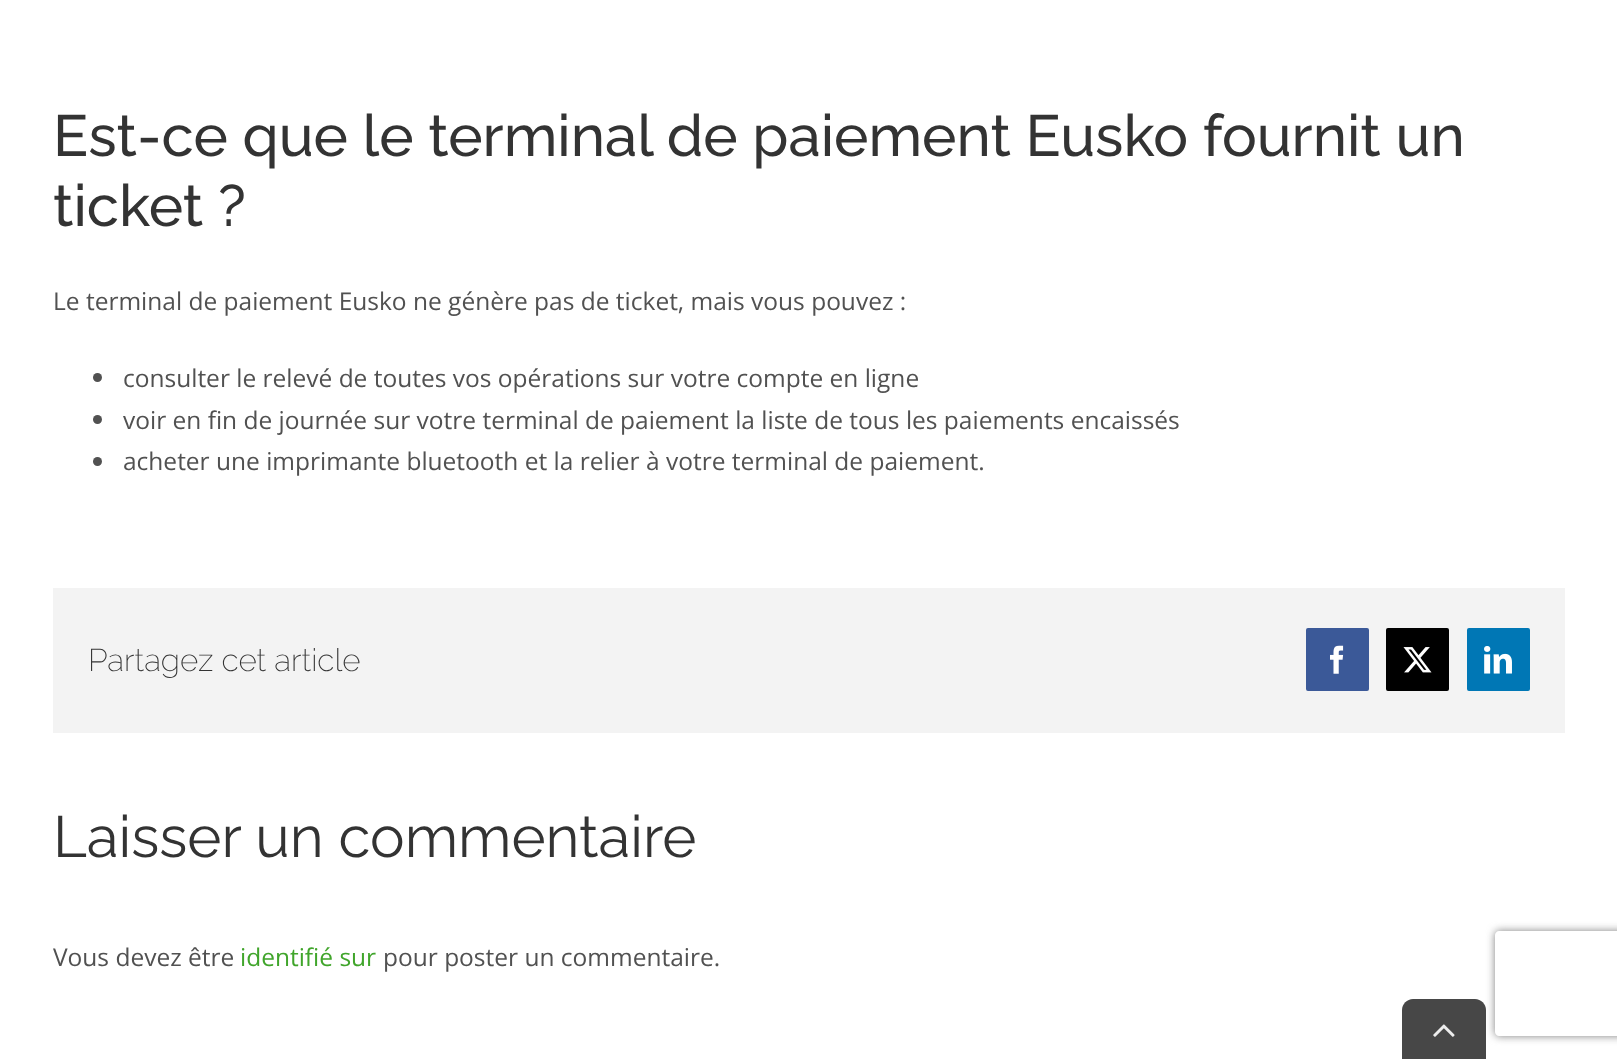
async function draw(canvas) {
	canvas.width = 1617;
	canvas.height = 1059;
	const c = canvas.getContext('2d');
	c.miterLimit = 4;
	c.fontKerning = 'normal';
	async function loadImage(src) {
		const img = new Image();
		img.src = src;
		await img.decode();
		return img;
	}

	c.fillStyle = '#fff';
	c.fillRect(0, 0, 1617, 1059);
	c.font = '500 58.1px Raleway';
	c.fillStyle = '#333';
	c.fillText('Est-ce que le terminal de paiement Eusko fournit un', 53, 156);
	c.fillText('ticket ?', 53, 226);
	c.font = '24.5px Open Sans';
	c.fillStyle = '#515151';
	c.fillText('Le terminal de paiement Eusko ne génère pas de ticket, mais vous pouvez :', 53, 310);
	c.beginPath();
	c.arc(97.5, 377.5, 4.5, 0, 2 * Math.PI);
	c.fill();
	c.fillText('consulter le relevé de toutes vos opérations sur votre compte en ligne', 123, 387);
	c.beginPath();
	c.arc(97.5, 419.5, 4.5, 0, 2 * Math.PI);
	c.fill();
	c.fillText('voir en fin de journée sur votre terminal de paiement la liste de tous les paiements encaissés', 123, 429);
	c.beginPath();
	c.arc(97.5, 461.5, 4.5, 0, 2 * Math.PI);
	c.fill();
	c.fillText('acheter une imprimante bluetooth et la relier à votre terminal de paiement.', 123, 470);
	c.fillStyle = '#f3f3f3';
	c.fillRect(53, 588, 1512, 145);
	c.font = '200 31.5px Raleway';
	c.fillStyle = '#333';
	c.fillText('Partagez cet article', 88, 671);
	c.fillStyle = '#3b5998';
	c.beginPath();
	c.roundRect(1307, 629, 61, 61, 1);
	c.fill();
	c.strokeStyle = '#3b5998';
	c.lineWidth = 2;
	c.stroke();
	c.drawImage(await loadImage('img1.png'), 1330, 645, 14, 29);
	c.fillStyle = '#000';
	c.beginPath();
	c.roundRect(1387, 629, 61, 61, 1);
	c.fill();
	c.strokeStyle = '#000';
	c.stroke();
	c.drawImage(await loadImage('img2.png'), 1403, 647, 29, 26);
	c.fillStyle = '#0077b5';
	c.beginPath();
	c.roundRect(1468, 629, 61, 61, 1);
	c.fill();
	c.strokeStyle = '#0077b5';
	c.stroke();
	c.drawImage(await loadImage('img3.png'), 1484, 646, 28, 28);
	c.font = '58.1px Raleway';
	c.fillStyle = '#333';
	c.fillText('Laisser un commentaire', 53, 857);
	c.font = '24.5px Open Sans';
	c.fillStyle = '#515151';
	c.fillText('Vous devez être', 53, 966);
	c.fillStyle = '#40a52b';
	c.fillText('identifié sur', 240, 966);
	c.fillStyle = '#515151';
	c.fillText('pour poster un commentaire.', 383, 966);
	c.save();
	c.beginPath();
	c.moveTo(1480, 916);
	c.lineTo(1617, 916);
	c.lineTo(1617, 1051);
	c.lineTo(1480, 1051);
	c.closePath();
	c.moveTo(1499, 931);
	c.lineTo(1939, 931);
	c.bezierCurveTo(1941, 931, 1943, 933, 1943, 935);
	c.lineTo(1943, 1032);
	c.bezierCurveTo(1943, 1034, 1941, 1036, 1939, 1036);
	c.lineTo(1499, 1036);
	c.bezierCurveTo(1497, 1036, 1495, 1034, 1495, 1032);
	c.lineTo(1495, 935);
	c.bezierCurveTo(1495, 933, 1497, 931, 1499, 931);
	c.closePath();
	c.clip('evenodd');
	c.fillStyle = '#808080';
	c.filter = 'blur(4.5px)';
	c.beginPath();
	c.roundRect(1495, 931, 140, 105, 4);
	c.fill();
	c.filter = 'none';
	c.restore();
	c.fillStyle = '#474747';
	c.beginPath();
	c.moveTo(1413, 999);
	c.lineTo(1475, 999);
	c.bezierCurveTo(1481, 999, 1486, 1004, 1486, 1010);
	c.lineTo(1486, 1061);
	c.lineTo(1402, 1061);
	c.lineTo(1402, 1010);
	c.bezierCurveTo(1402, 1004, 1407, 999, 1413, 999);
	c.closePath();
	c.fill();
	c.drawImage(await loadImage('img4.png'), 1433, 1024, 22, 13);
}

draw(document.querySelector('canvas'));
